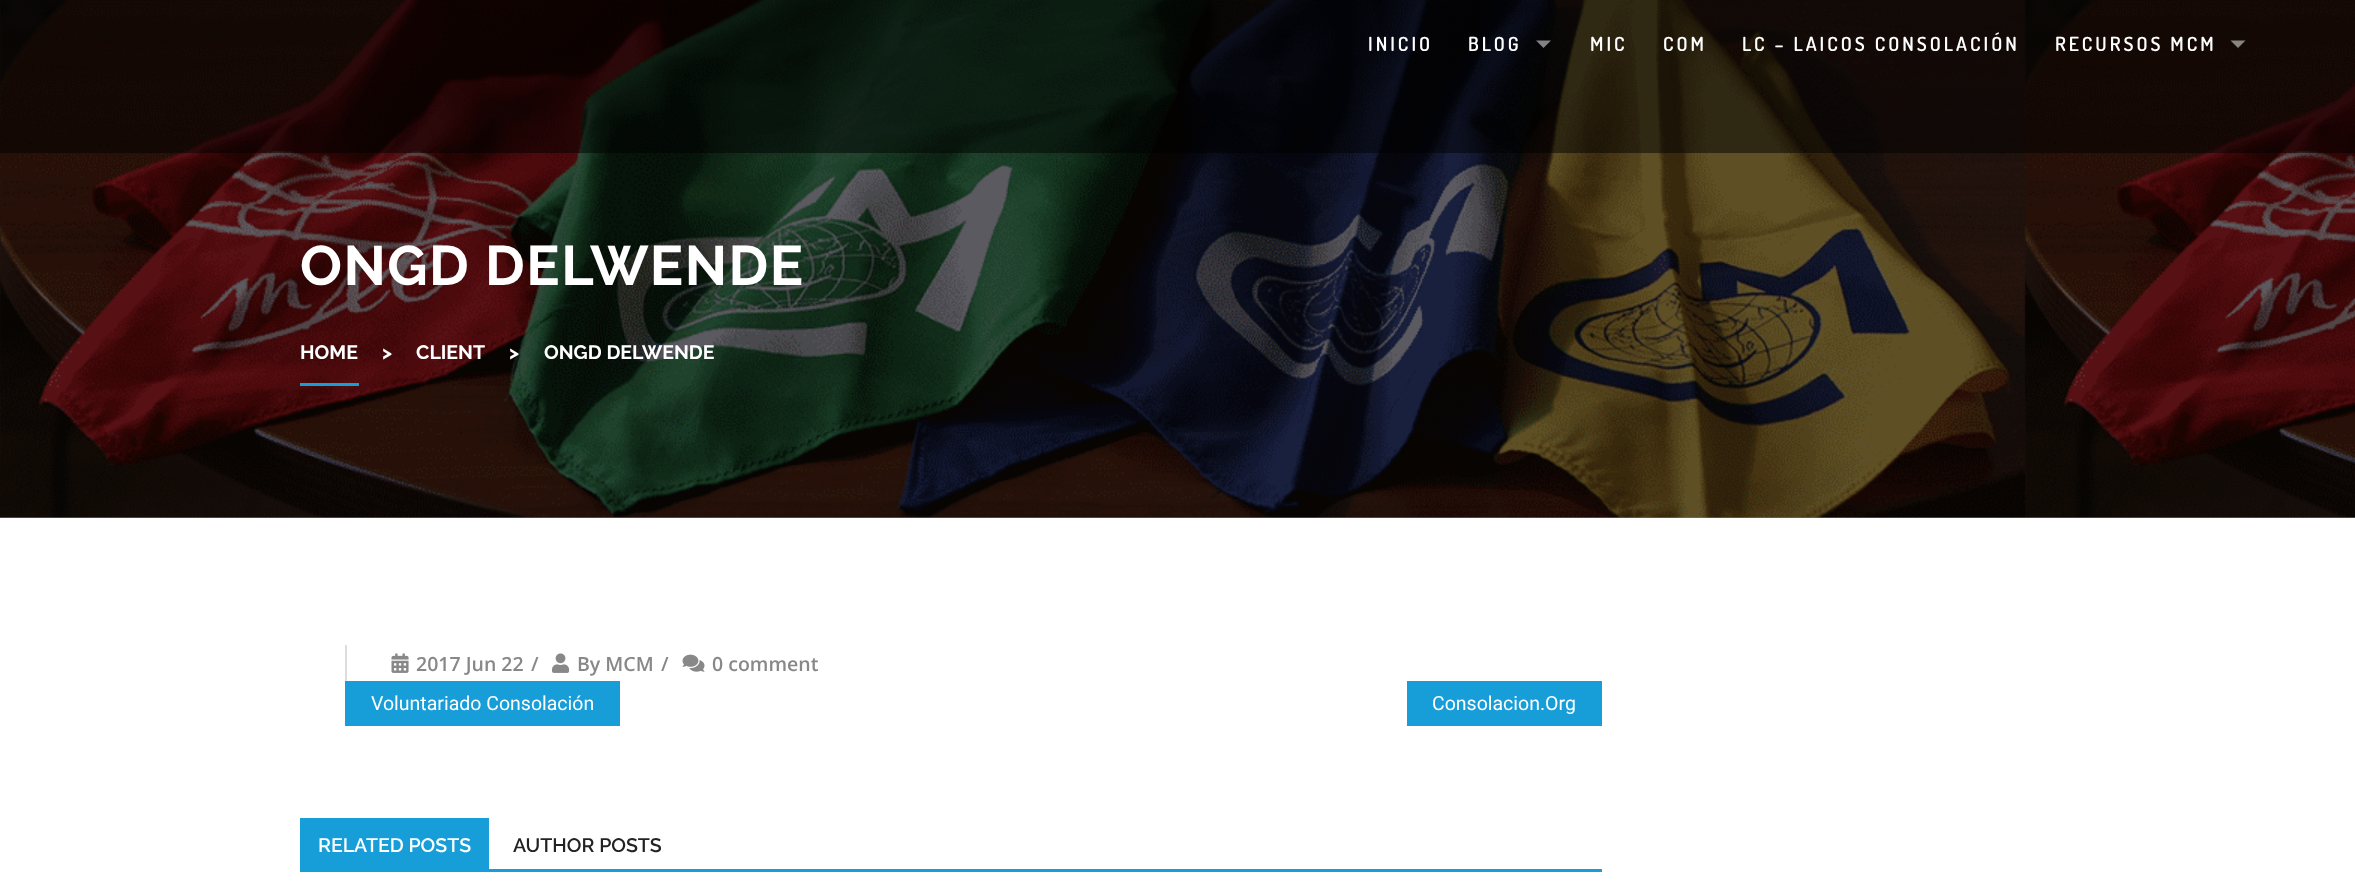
async function draw(canvas) {
	canvas.width = 2355;
	canvas.height = 890;
	const c = canvas.getContext('2d');
	c.miterLimit = 4;
	c.fontKerning = 'normal';
	async function loadImage(src) {
		const img = new Image();
		img.src = src;
		await img.decode();
		return img;
	}

	c.fillStyle = '#fff';
	c.fillRect(0, 0, 2355, 890);
	c.fillStyle = '#808080';
	c.fillRect(0, 517, 2355, 1);
	c.drawImage(await loadImage('img1.png'), 0, 0, 2355, 518);
	c.fillStyle = '#00000080';
	c.fillRect(0, 0, 2355, 153);
	c.letterSpacing = '3px';
	c.font = '600 19.5px Dosis';
	c.fillStyle = '#fff';
	c.fillText('INICIO', 1368, 51);
	c.fillText('BLOG', 1468, 51);
	c.fillStyle = '#ffffff80';
	c.beginPath();
	c.moveTo(1536, 40.5);
	c.lineTo(1551, 40.5);
	c.lineTo(1543.5, 48);
	c.closePath();
	c.fill();
	c.fillStyle = '#fff';
	for (const [text, x, y] of [
		['MIC', 1590, 51],
		['COM', 1663, 51],
		['LC – LAICOS CONSOLACIÓN', 1742, 51],
		['RECURSOS MCM', 2055, 51],
	]) {
		c.fillText(text, x, y);
	}
	c.fillStyle = '#898482';
	c.beginPath();
	c.moveTo(2230.5, 40.5);
	c.lineTo(2245.5, 40.5);
	c.lineTo(2238, 48);
	c.closePath();
	c.fill();
	c.letterSpacing = '1.5px';
	c.font = 'bold 55.5px Raleway';
	c.fillStyle = '#fff';
	c.fillText('ONGD DELWENDE', 300, 285);
	c.letterSpacing = '0px';
	c.font = 'bold 19.5px Raleway';
	c.fillText('HOME', 300, 359);
	c.fillStyle = '#179ed8';
	c.fillRect(300, 383, 59, 3);
	c.fillStyle = '#fff';
	for (const [text, x, y] of [
		['>', 382, 359],
		['CLIENT', 416, 359],
		['>', 509, 359],
		['ONGD DELWENDE', 544, 359],
	]) {
		c.fillText(text, x, y);
	}
	c.fillStyle = '#ddd';
	c.fillRect(345, 645, 2, 36);
	c.drawImage(await loadImage('img2.png'), 391, 653, 18, 20);
	c.font = '600 19.5px Open Sans';
	c.fillStyle = '#888';
	c.fillText('2017 Jun 22', 416, 671);
	c.fillText('/', 531, 671);
	c.drawImage(await loadImage('img3.png'), 552, 653, 18, 20);
	c.fillText('By MCM', 577, 671);
	c.fillText('/', 661, 671);
	c.drawImage(await loadImage('img4.png'), 682, 654, 23, 18);
	c.fillText('0 comment', 712, 671);
	c.fillStyle = '#179ed8';
	c.fillRect(345, 681, 275, 45);
	c.font = '19.5px Roboto';
	c.fillStyle = '#fff';
	c.fillText('Voluntariado Consolación', 371, 710);
	c.fillStyle = '#179ed8';
	c.fillRect(1407, 681, 195, 45);
	c.fillStyle = '#fff';
	c.fillText('Consolacion.Org', 1432, 710);
	c.fillStyle = '#179ed8';
	c.fillRect(300, 869, 1302, 3);
	c.fillRect(300, 818, 189, 51);
	c.font = '600 19.5px Raleway';
	c.fillStyle = '#fff';
	c.fillText('RELATED POSTS', 318, 852);
	c.fillStyle = '#222';
	c.fillText('AUTHOR POSTS', 513, 852);
}

draw(document.querySelector('canvas'));
